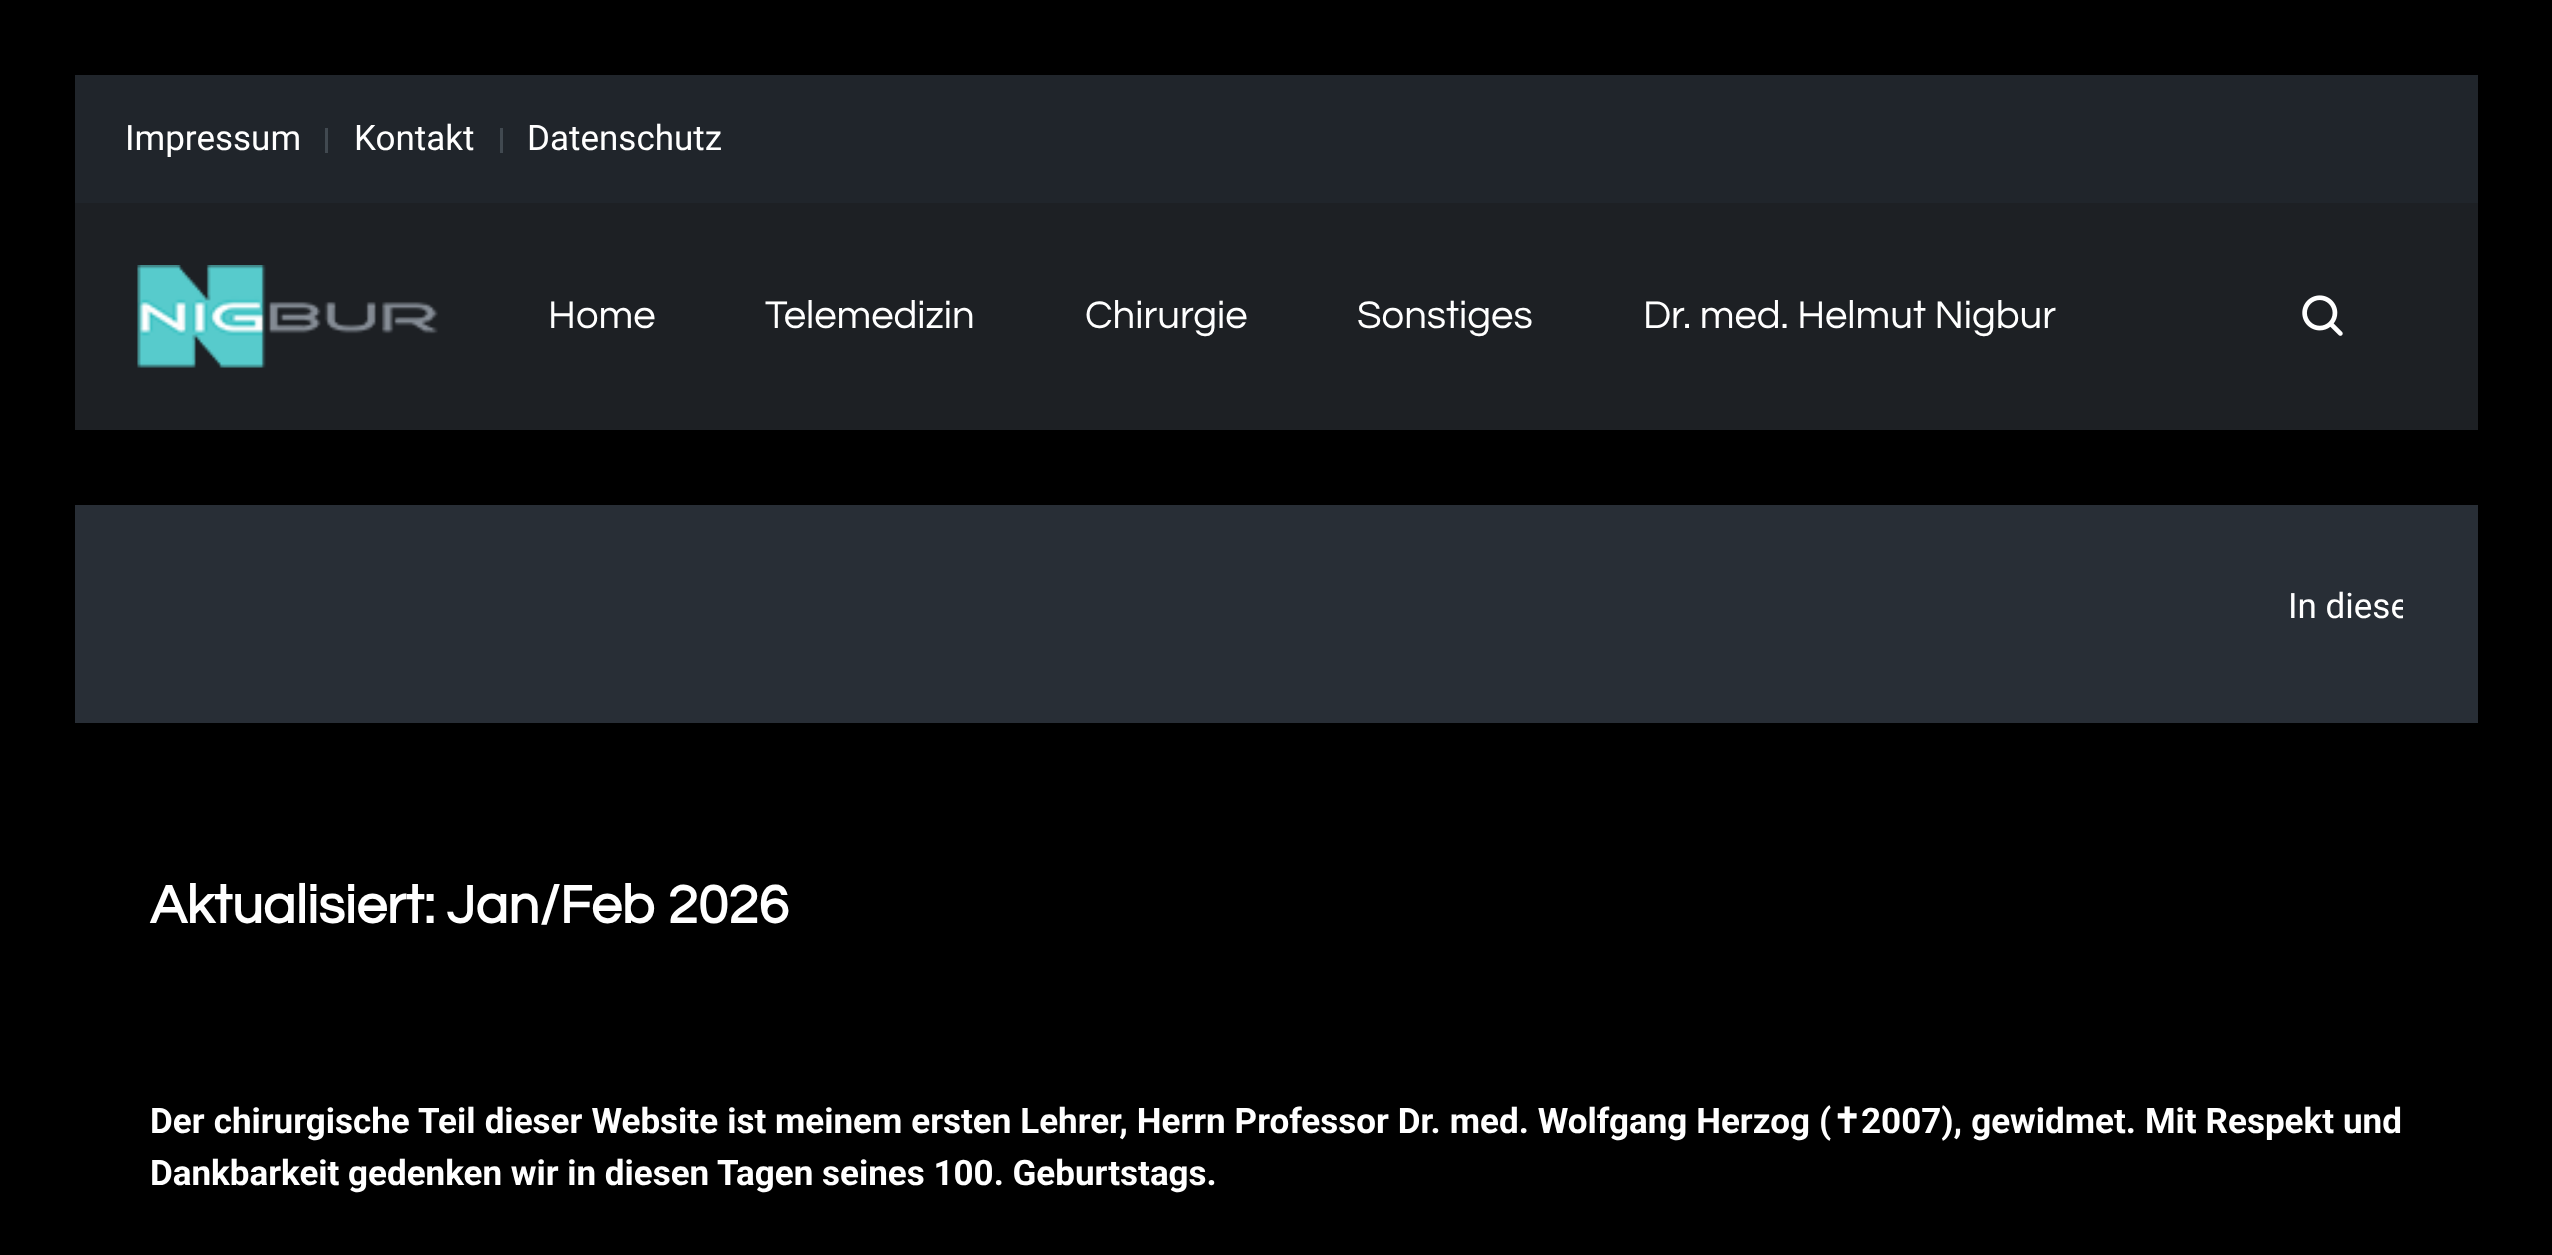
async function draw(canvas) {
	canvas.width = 2552;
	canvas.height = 1255;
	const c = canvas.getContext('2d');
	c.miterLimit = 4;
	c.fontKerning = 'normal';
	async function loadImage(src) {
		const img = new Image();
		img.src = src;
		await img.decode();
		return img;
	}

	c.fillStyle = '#000';
	c.fillRect(0, 0, 2552, 1255);
	c.fillStyle = '#20252b';
	c.fillRect(75, 75, 2403, 128);
	c.font = '35px Roboto';
	c.fillStyle = '#fff';
	c.fillText('Impressum', 125, 150);
	c.fillStyle = '#414950';
	c.fillRect(325, 128, 3, 25);
	c.fillStyle = '#fff';
	c.fillText('Kontakt', 354, 150);
	c.fillStyle = '#414950';
	c.fillRect(500, 128, 3, 25);
	c.fillStyle = '#fff';
	c.fillText('Datenschutz', 527, 150);
	c.fillStyle = '#1d2024';
	c.fillRect(75, 203, 2403, 227);
	c.drawImage(await loadImage('img1.png'), 137, 265, 301, 103);
	c.font = '40px Questrial';
	c.fillStyle = '#fff';
	for (const [text, x, y] of [
		['Home', 548, 328],
		['Telemedizin', 765, 328],
		['Chirurgie', 1085, 328],
		['Sonstiges', 1357, 328],
		['Dr. med. Helmut Nigbur', 1643, 328],
	]) {
		c.fillText(text, x, y);
	}
	c.drawImage(await loadImage('img2.png'), 2302, 295, 41, 41);
	c.fillStyle = '#282e36';
	c.fillRect(75, 505, 2403, 218);
	c.save();
	c.beginPath();
	c.rect(150, 580, 2253, 53);
	c.clip();
	c.font = '35px Roboto';
	c.fillStyle = '#fff';
	c.fillText('In diese', 2288, 618);
	c.restore();
	c.font = 'bold 55px Questrial';
	c.fillStyle = '#fff';
	c.fillText('Aktualisiert: Jan/Feb 2026', 150, 923);
	c.wordSpacing = '0.5px';
	c.font = 'bold 35px Roboto';
	c.fillText('Der chirurgische Teil dieser Website ist', 150, 1133);
	c.wordSpacing = '0.25px';
	c.fillText('meinem ersten Lehrer, Herrn Professor Dr. med. Wolfgang Herzog (', 775, 1133);
	c.wordSpacing = '0px';
	c.font = 'bold 35px DejaVu Sans';
	c.fillText('✝︎', 1832, 1133);
	c.wordSpacing = '0.25px';
	c.font = 'bold 35px Roboto';
	c.fillText('2007), gewidmet. Mit Respekt und', 1861, 1133);
	c.wordSpacing = '0px';
	c.fillText('Dankbarkeit gedenken wir in diesen Tagen seines 100. Geburtstags.', 150, 1185);
}

draw(document.querySelector('canvas'));
